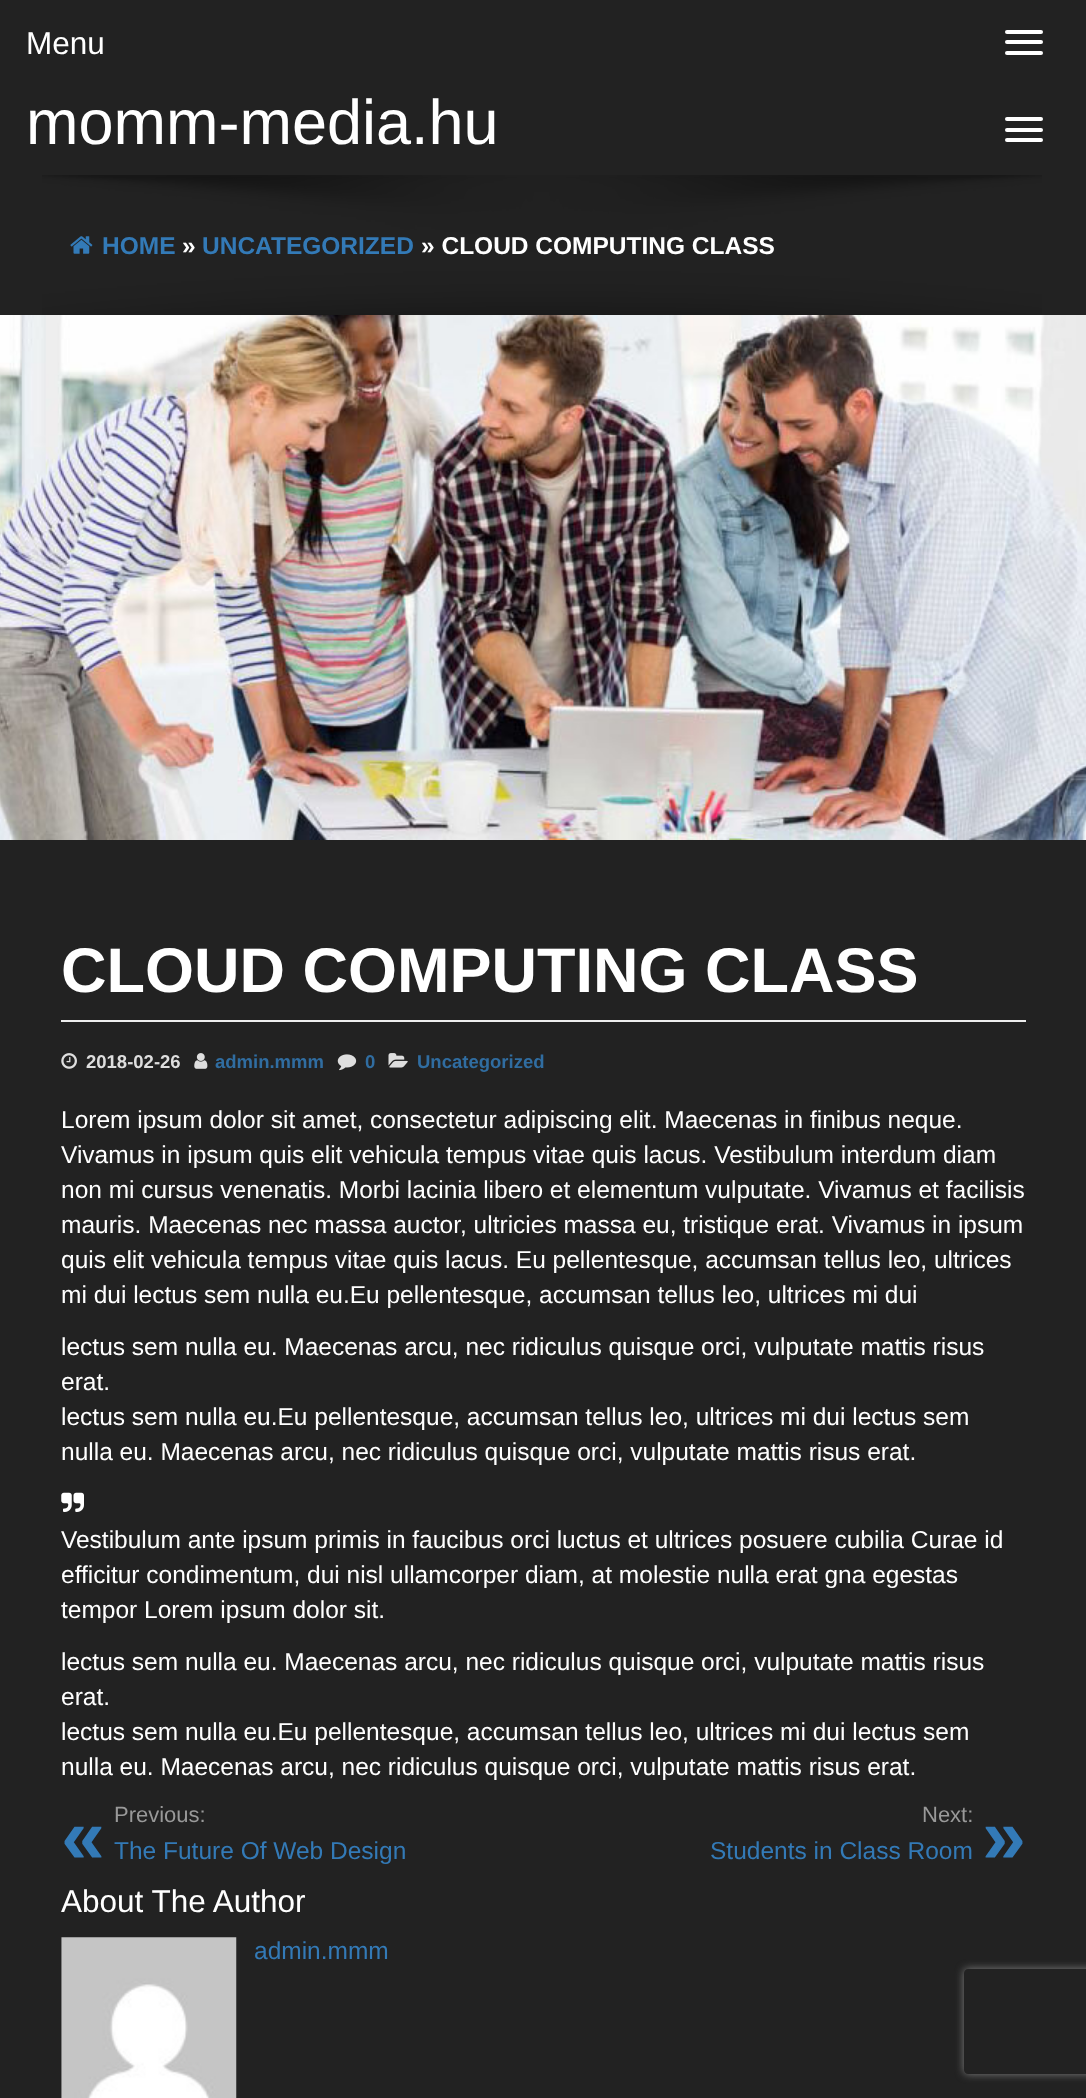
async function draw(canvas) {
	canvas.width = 1086;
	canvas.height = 2098;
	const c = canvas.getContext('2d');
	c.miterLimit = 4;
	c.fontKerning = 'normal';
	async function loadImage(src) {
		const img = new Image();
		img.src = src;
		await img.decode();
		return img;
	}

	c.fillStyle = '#222';
	c.fillRect(0, 0, 1086, 2098);
	c.font = '31.5px Liberation Sans';
	c.fillStyle = '#fff';
	c.fillText('Menu', 26, 54);
	c.beginPath();
	c.roundRect(1005, 30, 38, 4, 2);
	c.fill();
	c.beginPath();
	c.roundRect(1005, 40, 38, 4, 2);
	c.fill();
	c.beginPath();
	c.roundRect(1005, 51, 38, 4, 2);
	c.fill();
	c.font = '63px Liberation Sans';
	c.fillText('momm-media.hu', 26, 144);
	c.beginPath();
	c.roundRect(1005, 117, 38, 4, 2);
	c.fill();
	c.beginPath();
	c.roundRect(1005, 128, 38, 4, 2);
	c.fill();
	c.beginPath();
	c.roundRect(1005, 138, 38, 4, 2);
	c.fill();
	c.drawImage(await loadImage('img1.png'), 42, 175, 1000, 140);
	c.drawImage(await loadImage('img2.png'), 70, 236, 23, 18);
	c.font = 'bold 24.5px Liberation Sans';
	c.fillStyle = '#337ab7';
	c.fillText('HOME', 102, 254);
	c.fillStyle = '#fff';
	c.fillText('»', 182, 254);
	c.fillStyle = '#337ab7';
	c.fillText('UNCATEGORIZED', 202, 254);
	c.fillStyle = '#fff';
	c.fillText('» CLOUD COMPUTING CLASS', 421, 254);
	c.drawImage(await loadImage('img3.png'), 0, 315, 1086, 525);
	c.fillStyle = '#eee';
	c.fillRect(61, 1020, 965, 2);
	c.font = 'bold 63px Liberation Sans';
	c.fillStyle = '#fff';
	c.fillText('CLOUD COMPUTING CLASS', 61, 992);
	c.drawImage(await loadImage('img4.png'), 61, 1053, 16, 16);
	c.font = 'bold 18.5px Liberation Sans';
	c.fillStyle = '#dedede';
	c.fillText('2018-02-26', 86, 1068);
	c.drawImage(await loadImage('img5.png'), 194, 1053, 14, 16);
	c.fillStyle = '#306da1';
	c.fillText('admin.mmm', 215, 1068);
	c.drawImage(await loadImage('img6.png'), 337, 1054, 20, 17);
	c.fillText('0', 365, 1068);
	c.drawImage(await loadImage('img7.png'), 388, 1053, 20, 15);
	c.fillText('Uncategorized', 417, 1068);
	c.font = '24.5px Liberation Sans';
	c.fillStyle = '#fff';
	for (const [text, x, y] of [
		['Lorem ipsum dolor sit amet, consectetur adipiscing elit. Maecenas in finibus neque.', 61, 1128],
		['Vivamus in ipsum quis elit vehicula tempus vitae quis lacus. Vestibulum interdum diam', 61, 1163],
		['non mi cursus venenatis. Morbi lacinia libero et elementum vulputate. Vivamus et facilisis', 61, 1198],
		['mauris. Maecenas nec massa auctor, ultricies massa eu, tristique erat. Vivamus in ipsum', 61, 1233],
		['quis elit vehicula tempus vitae quis lacus. Eu pellentesque, accumsan tellus leo, ultrices', 61, 1268],
		['mi dui lectus sem nulla eu.Eu pellentesque, accumsan tellus leo, ultrices mi dui', 61, 1303],
		['lectus sem nulla eu. Maecenas arcu, nec ridiculus quisque orci, vulputate mattis risus', 61, 1355],
		['erat.', 61, 1390],
		['lectus sem nulla eu.Eu pellentesque, accumsan tellus leo, ultrices mi dui lectus sem', 61, 1425],
		['nulla eu. Maecenas arcu, nec ridiculus quisque orci, vulputate mattis risus erat.', 61, 1460],
	]) {
		c.fillText(text, x, y);
	}
	c.drawImage(await loadImage('img8.png'), 61, 1492, 23, 20);
	for (const [text, x, y] of [
		['Vestibulum ante ipsum primis in faucibus orci luctus et ultrices posuere cubilia Curae id', 61, 1548],
		['efficitur condimentum, dui nisl ullamcorper diam, at molestie nulla erat gna egestas', 61, 1583],
		['tempor Lorem ipsum dolor sit.', 61, 1618],
		['lectus sem nulla eu. Maecenas arcu, nec ridiculus quisque orci, vulputate mattis risus', 61, 1670],
		['erat.', 61, 1705],
		['lectus sem nulla eu.Eu pellentesque, accumsan tellus leo, ultrices mi dui lectus sem', 61, 1740],
		['nulla eu. Maecenas arcu, nec ridiculus quisque orci, vulputate mattis risus erat.', 61, 1775],
	]) {
		c.fillText(text, x, y);
	}
	c.font = '22px Liberation Sans';
	c.fillStyle = '#999';
	c.fillText('Previous:', 114, 1822);
	c.font = 'bold 79px Liberation Sans';
	c.fillStyle = '#337ab7';
	c.fillText('«', 61, 1863);
	c.font = '24.5px Liberation Sans';
	c.fillText('The Future Of Web Design', 114, 1859);
	c.font = '22px Liberation Sans';
	c.fillStyle = '#999';
	c.fillText('Next:', 922, 1822);
	c.font = '24.5px Liberation Sans';
	c.fillStyle = '#337ab7';
	c.fillText('Students in Class Room', 710, 1859);
	c.font = 'bold 79px Liberation Sans';
	c.fillText('»', 982, 1863);
	c.font = '31.5px Liberation Sans';
	c.fillStyle = '#fff';
	c.fillText('About The Author', 61, 1912);
	c.drawImage(await loadImage('img9.png'), 61, 1937, 176, 161);
	c.font = '24.5px Liberation Sans';
	c.fillStyle = '#337ab7';
	c.fillText('admin.mmm', 254, 1959);
	c.save();
	c.beginPath();
	c.moveTo(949, 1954);
	c.lineTo(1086, 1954);
	c.lineTo(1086, 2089);
	c.lineTo(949, 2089);
	c.closePath();
	c.moveTo(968, 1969);
	c.lineTo(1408, 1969);
	c.bezierCurveTo(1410, 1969, 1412, 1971, 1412, 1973);
	c.lineTo(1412, 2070);
	c.bezierCurveTo(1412, 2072, 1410, 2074, 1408, 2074);
	c.lineTo(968, 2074);
	c.bezierCurveTo(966, 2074, 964, 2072, 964, 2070);
	c.lineTo(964, 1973);
	c.bezierCurveTo(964, 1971, 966, 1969, 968, 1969);
	c.closePath();
	c.clip('evenodd');
	c.fillStyle = '#808080';
	c.filter = 'blur(4.5px)';
	c.beginPath();
	c.roundRect(964, 1969, 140, 105, 4);
	c.fill();
	c.filter = 'none';
	c.restore();
}

draw(document.querySelector('canvas'));
